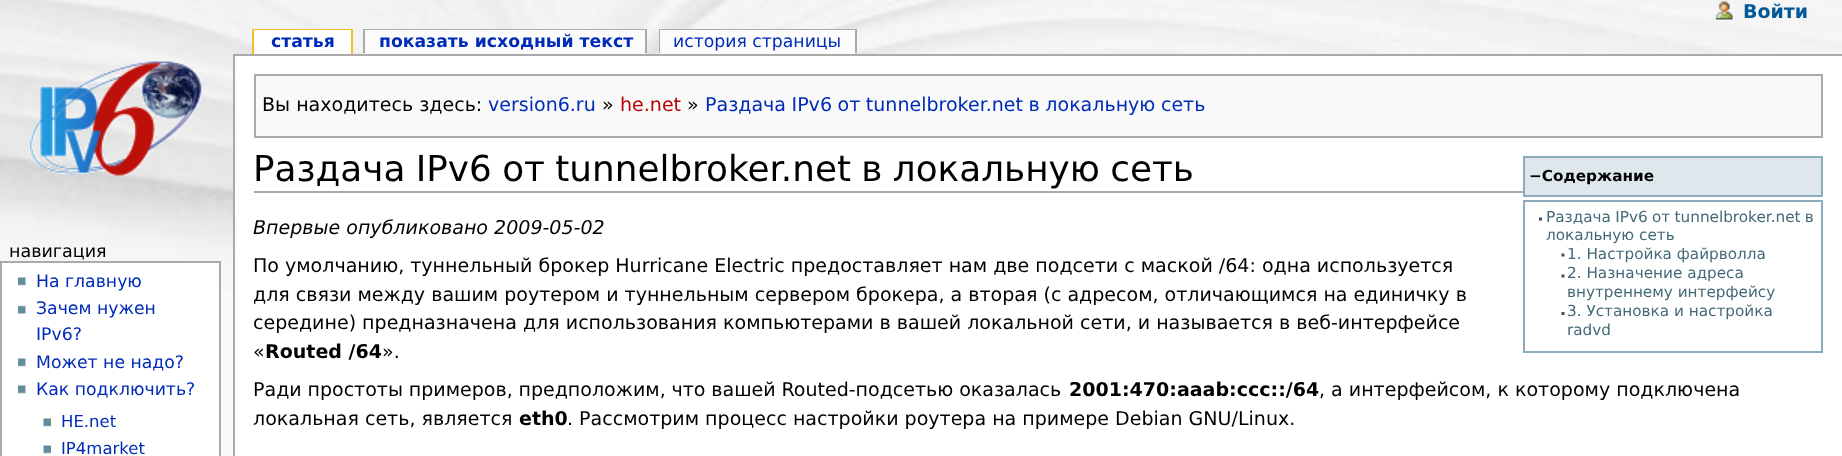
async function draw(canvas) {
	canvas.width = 1842;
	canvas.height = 456;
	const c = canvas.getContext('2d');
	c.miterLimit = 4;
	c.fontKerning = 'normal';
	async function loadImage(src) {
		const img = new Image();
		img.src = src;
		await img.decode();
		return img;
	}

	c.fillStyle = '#f9f9f9';
	c.fillRect(0, 0, 1842, 456);
	c.drawImage(await loadImage('img1.png'), 0, 0, 1842, 292);
	c.drawImage(await loadImage('img2.png'), 1715, 1, 18, 19);
	c.font = 'bold 19px DejaVu Sans';
	c.fillStyle = '#005896';
	c.fillText('Войти', 1743, 18);
	c.fillStyle = '#fff';
	c.fillRect(254, 30, 97, 24);
	c.font = 'bold 17.25px DejaVu Sans';
	c.fillStyle = '#002bb8';
	c.fillText('статья', 271, 47);
	for (const [x, y, w, h, color] of [
		[252, 29, 101, 1, '#fabd23'],
		[351, 29, 2, 25, '#fabd23'],
		[252, 29, 2, 25, '#fabd23'],
		[365, 30, 280, 24, '#fbfbfb'],
	]) {
		c.fillStyle = color;
		c.fillRect(x, y, w, h);
	}
	c.fillStyle = '#002bb8';
	c.fillText('показать исходный текст', 379, 47);
	for (const [x, y, w, h, color] of [
		[363, 29, 284, 1, '#aaa'],
		[645, 29, 2, 24, '#aaa'],
		[363, 29, 2, 24, '#aaa'],
		[659, 29, 198, 1, '#aaa'],
		[659, 29, 2, 24, '#aaa'],
		[660, 30, 195, 24, '#fbfbfb'],
	]) {
		c.fillStyle = color;
		c.fillRect(x, y, w, h);
	}
	c.font = '17.25px DejaVu Sans';
	c.fillStyle = '#002bb8';
	c.fillText('история страницы', 673, 47);
	c.fillStyle = '#aaa';
	c.fillRect(855, 29, 2, 24);
	c.drawImage(await loadImage('img3.png'), 30, 60, 173, 116);
	c.font = '17.5px DejaVu Sans';
	c.fillStyle = '#000';
	c.fillText('навигация', 9, 257);
	c.fillStyle = '#fff';
	c.beginPath();
	c.rect(1, 262, 219, 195);
	c.fill();
	c.strokeStyle = '#aaa';
	c.lineWidth = 2;
	c.stroke();
	c.drawImage(await loadImage('img4.png'), 18, 277, 8, 9);
	c.font = '17.25px DejaVu Sans';
	c.fillStyle = '#002bb8';
	c.fillText('На главную', 36, 287);
	c.drawImage(await loadImage('img5.png'), 18, 305, 8, 9);
	c.fillText('Зачем нужен', 36, 314);
	c.fillText('IPv6?', 36, 340);
	c.drawImage(await loadImage('img4.png'), 18, 358, 8, 9);
	c.fillText('Может не надо?', 36, 368);
	c.drawImage(await loadImage('img4.png'), 18, 385, 8, 9);
	c.fillText('Как подключить?', 36, 395);
	c.drawImage(await loadImage('img6.png'), 43, 418, 8, 9);
	c.font = '16.5px DejaVu Sans';
	c.fillText('HE.net', 61, 427);
	c.drawImage(await loadImage('img6.png'), 43, 445, 8, 9);
	c.fillText('IP4market', 61, 454);
	for (const [x, y, w, h, color] of [
		[235, 56, 1607, 400, '#fff'],
		[233, 54, 1609, 2, '#aaa'],
		[233, 54, 2, 402, '#aaa'],
	]) {
		c.fillStyle = color;
		c.fillRect(x, y, w, h);
	}
	c.fillStyle = '#f9f9f9';
	c.beginPath();
	c.rect(255, 75, 1567, 62);
	c.fill();
	c.stroke();
	c.font = '19.05px DejaVu Sans';
	c.fillStyle = '#000';
	c.fillText('Вы находитесь здесь:', 262, 111);
	c.fillStyle = '#002bb8';
	c.fillText('version6.ru', 488, 111);
	c.fillStyle = '#000';
	c.fillText('»', 602, 111);
	c.fillStyle = '#ba0000';
	c.fillText('he.net', 620, 111);
	c.fillStyle = '#000';
	c.fillText('»', 687, 111);
	c.wordSpacing = '-0.5px';
	c.fillStyle = '#002bb8';
	c.fillText('Раздача IPv6 от tunnelbroker.net в локальную сеть', 705, 111);
	c.fillStyle = '#aaa';
	c.fillRect(254, 191, 1269, 2);
	c.wordSpacing = '-1px';
	c.font = '35.8px DejaVu Sans';
	c.fillStyle = '#000';
	c.fillText('Раздача IPv6 от tunnelbroker.net в локальную сеть', 253, 181);
	c.fillStyle = '#dee7ec';
	c.beginPath();
	c.rect(1524, 157, 298, 39);
	c.fill();
	c.strokeStyle = '#8cacbb';
	c.stroke();
	c.wordSpacing = '0px';
	c.font = 'bold 15.25px DejaVu Sans';
	c.fillStyle = '#000';
	c.fillText('−Содержание', 1529, 181);
	c.strokeRect(1524, 201, 298, 151);
	c.drawImage(await loadImage('img7.png'), 1539, 217, 3, 4);
	c.wordSpacing = '-0.5px';
	c.font = '15.25px DejaVu Sans';
	c.fillStyle = '#436976';
	c.fillText('Раздача IPv6 от tunnelbroker.net в', 1546, 222);
	c.wordSpacing = '0px';
	c.fillText('локальную сеть', 1546, 240);
	c.drawImage(await loadImage('img8.png'), 1561, 253, 4, 4);
	c.fillText('1. Настройка файрволла', 1567, 259);
	c.drawImage(await loadImage('img8.png'), 1561, 274, 4, 4);
	c.fillText('2. Назначение адреса', 1567, 278);
	c.fillText('внутреннему интерфейсу', 1567, 297);
	c.drawImage(await loadImage('img9.png'), 1561, 312, 4, 3);
	c.fillText('3. Установка и настройка', 1567, 316);
	c.fillText('radvd', 1567, 335);
	c.font = 'italic 19.05px DejaVu Sans';
	c.fillStyle = '#000';
	c.fillText('Впервые опубликовано 2009-05-02', 253, 234);
	c.font = '19.05px DejaVu Sans';
	for (const [text, x, y] of [
		['По умолчанию, туннельный брокер Hurricane Electric предоставляет нам две подсети с маской /64: одна используется', 253, 272],
		['для связи между вашим роутером и туннельным сервером брокера, а вторая (с адресом, отличающимся на единичку в', 253, 301],
		['середине) предназначена для использования компьютерами в вашей локальной сети, и называется в веб-интерфейсе', 253, 329],
		['«', 253, 358],
	]) {
		c.fillText(text, x, y);
	}
	c.font = 'bold 19.05px DejaVu Sans';
	c.fillText('Routed /64', 265, 358);
	c.font = '19.05px DejaVu Sans';
	c.fillText('».', 382, 358);
	c.wordSpacing = '-0.25px';
	c.fillText('Ради простоты примеров, предположим, что вашей Routed-подсетью оказалась', 253, 396);
	c.wordSpacing = '0px';
	c.font = 'bold 19.05px DejaVu Sans';
	c.fillText('2001:470:aaab:ccc::/64', 1069, 396);
	c.font = '19.05px DejaVu Sans';
	c.fillText(', а интерфейсом, к которому подключена', 1319, 396);
	c.fillText('локальная сеть, является', 253, 425);
	c.font = 'bold 19.05px DejaVu Sans';
	c.fillText('eth0', 519, 425);
	c.font = '19.05px DejaVu Sans';
	c.fillText('. Рассмотрим процесс настройки роутера на примере Debian GNU/Linux.', 567, 425);
}

draw(document.querySelector('canvas'));
